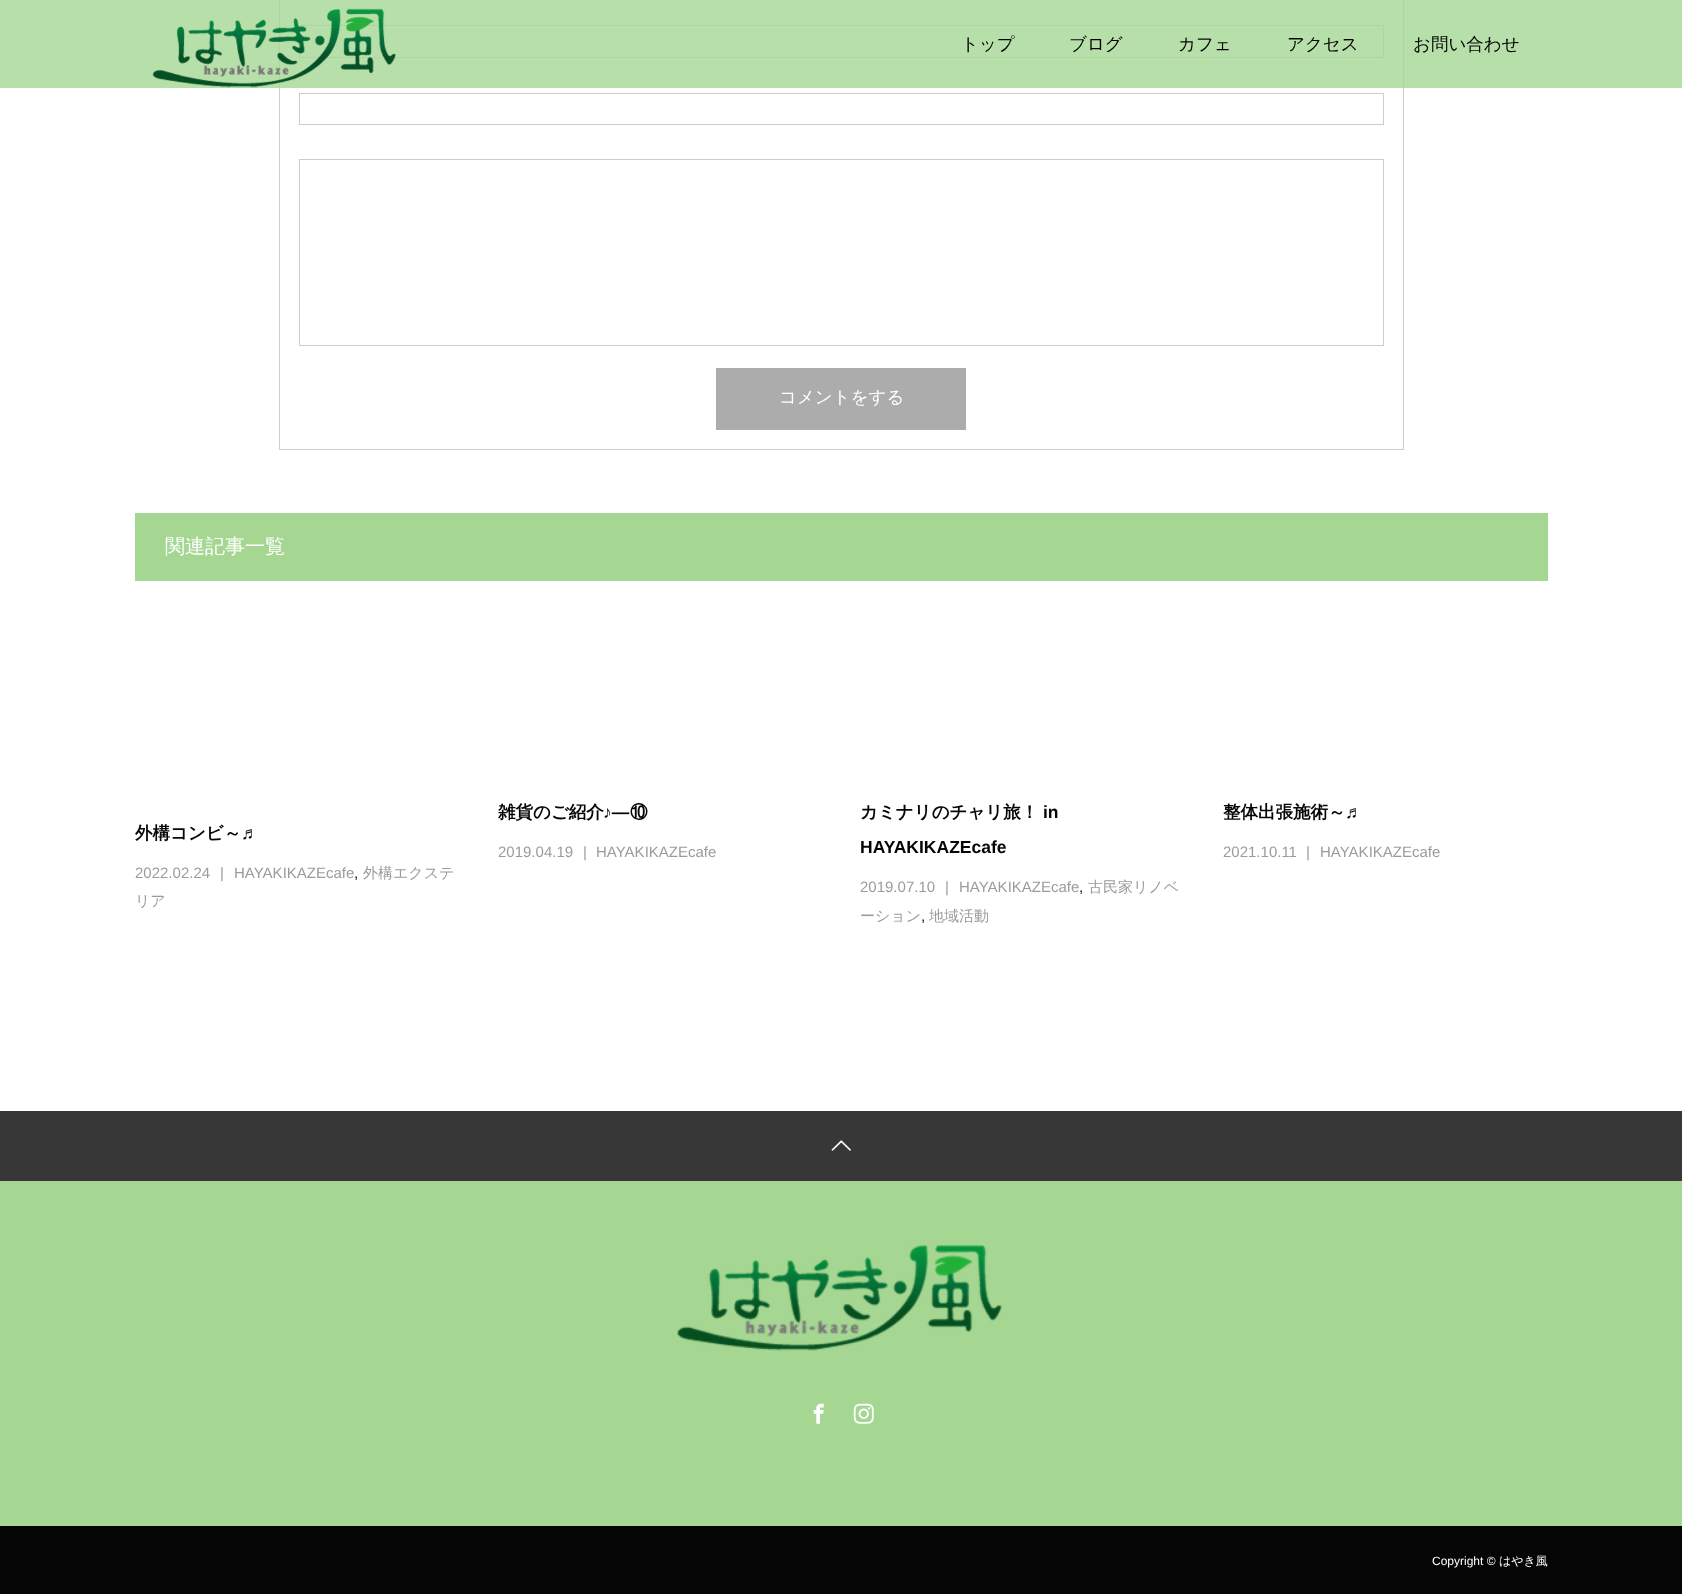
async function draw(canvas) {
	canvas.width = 1682;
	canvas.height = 1594;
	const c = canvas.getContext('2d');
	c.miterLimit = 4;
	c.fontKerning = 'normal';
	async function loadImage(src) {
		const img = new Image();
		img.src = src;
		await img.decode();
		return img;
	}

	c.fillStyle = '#fff';
	c.fillRect(0, 0, 1682, 1594);
	c.strokeStyle = '#cdcdcd';
	c.strokeRect(279.5, -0.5, 1124, 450);
	c.strokeRect(299.5, 25.5, 1084, 32);
	c.fillStyle = '#a5d793cc';
	c.fillRect(0, 0, 1682, 88);
	c.drawImage(await loadImage('img1.png'), 152, 8, 244, 80);
	c.font = '500 17.5px WenQuanYi Zen Hei';
	c.fillStyle = '#050505';
	for (const [text, x, y] of [
		['トップ', 961, 50],
		['ブログ', 1069, 50],
		['カフェ', 1178, 50],
		['アクセス', 1287, 50],
		['お問い合わせ', 1413, 50],
	]) {
		c.fillText(text, x, y);
	}
	c.strokeRect(299.5, 93.5, 1084, 31);
	c.strokeRect(299.5, 159.5, 1084, 186);
	c.fillStyle = '#acacac';
	c.fillRect(716, 368, 250, 62);
	c.fillStyle = '#fff';
	c.fillText('コメントをする', 779, 403);
	c.fillStyle = '#a5d793';
	c.fillRect(135, 513, 1413, 68);
	c.font = '500 20px WenQuanYi Zen Hei';
	c.fillStyle = '#fff';
	c.fillText('関連記事一覧', 165, 553);
	c.font = 'bold 17.5px WenQuanYi Zen Hei';
	c.fillStyle = '#050505';
	c.fillText('外構コンビ～', 135, 839);
	c.font = 'bold 17.5px Liberation Sans';
	c.fillText('♬', 241, 839);
	c.font = '15px Liberation Sans';
	c.fillStyle = '#9b9b9b';
	c.fillText('|', 220, 878);
	c.fillText('HAYAKIKAZEcafe', 234, 878);
	c.fillStyle = '#050505';
	c.fillText(',', 354, 878);
	c.font = '500 15px WenQuanYi Zen Hei';
	c.fillStyle = '#9b9b9b';
	c.fillText('外構エクステ', 363, 878);
	c.fillText('リア', 135, 906);
	c.font = '15px Liberation Sans';
	c.fillText('2022.02.24', 135, 878);
	c.font = 'bold 17.5px WenQuanYi Zen Hei';
	c.fillStyle = '#050505';
	c.fillText('雑貨のご紹介', 498, 818);
	c.font = 'bold 17.5px Liberation Sans';
	c.fillText('♪―', 603, 818);
	c.font = 'bold 17.5px WenQuanYi Zen Hei';
	c.fillText('⑩', 630, 818);
	c.font = '15px Liberation Sans';
	c.fillStyle = '#9b9b9b';
	for (const [text, x, y] of [
		['2019.04.19', 498, 857],
		['|', 583, 857],
		['HAYAKIKAZEcafe', 596, 857],
	]) {
		c.fillText(text, x, y);
	}
	c.font = 'bold 17.5px WenQuanYi Zen Hei';
	c.fillStyle = '#050505';
	c.fillText('カミナリのチャリ旅！', 860, 818);
	c.font = 'bold 17.5px Liberation Sans';
	c.fillText('in', 1043, 818);
	c.fillText('HAYAKIKAZEcafe', 860, 853);
	c.font = '15px Liberation Sans';
	c.fillStyle = '#9b9b9b';
	c.fillText('|', 945, 892);
	c.fillText('HAYAKIKAZEcafe', 959, 892);
	c.fillStyle = '#050505';
	c.fillText(',', 1079, 892);
	c.font = '500 15px WenQuanYi Zen Hei';
	c.fillStyle = '#9b9b9b';
	c.fillText('古民家リノベ', 1088, 892);
	c.fillText('ーション', 860, 921);
	c.font = '15px Liberation Sans';
	c.fillStyle = '#050505';
	c.fillText(',', 921, 921);
	c.font = '500 15px WenQuanYi Zen Hei';
	c.fillStyle = '#9b9b9b';
	c.fillText('地域活動', 929, 921);
	c.font = '15px Liberation Sans';
	c.fillText('2019.07.10', 860, 892);
	c.font = 'bold 17.5px WenQuanYi Zen Hei';
	c.fillStyle = '#050505';
	c.fillText('整体出張施術～', 1223, 818);
	c.font = 'bold 17.5px Liberation Sans';
	c.fillText('♬', 1345, 818);
	c.font = '15px Liberation Sans';
	c.fillStyle = '#9b9b9b';
	for (const [text, x, y] of [
		['2021.10.11', 1223, 857],
		['|', 1306, 857],
		['HAYAKIKAZEcafe', 1320, 857],
	]) {
		c.fillText(text, x, y);
	}
	c.fillStyle = '#373737';
	c.fillRect(0, 1111, 1682, 70);
	c.drawImage(await loadImage('img2.png'), 831, 1140, 20, 11);
	c.fillStyle = '#a5d793';
	c.fillRect(0, 1181, 1682, 345);
	c.drawImage(await loadImage('img3.png'), 677, 1245, 325, 106);
	c.drawImage(await loadImage('img4.png'), 813, 1403, 11, 21);
	c.drawImage(await loadImage('img5.png'), 853, 1403, 21, 21);
	c.fillStyle = '#050505';
	c.fillRect(0, 1526, 1682, 68);
	c.font = '12px Liberation Sans';
	c.fillStyle = '#fff';
	c.fillText('Copyright ©', 1432, 1565);
	c.font = '500 12px WenQuanYi Zen Hei';
	c.fillText('はやき風', 1499, 1565);
}

draw(document.querySelector('canvas'));
